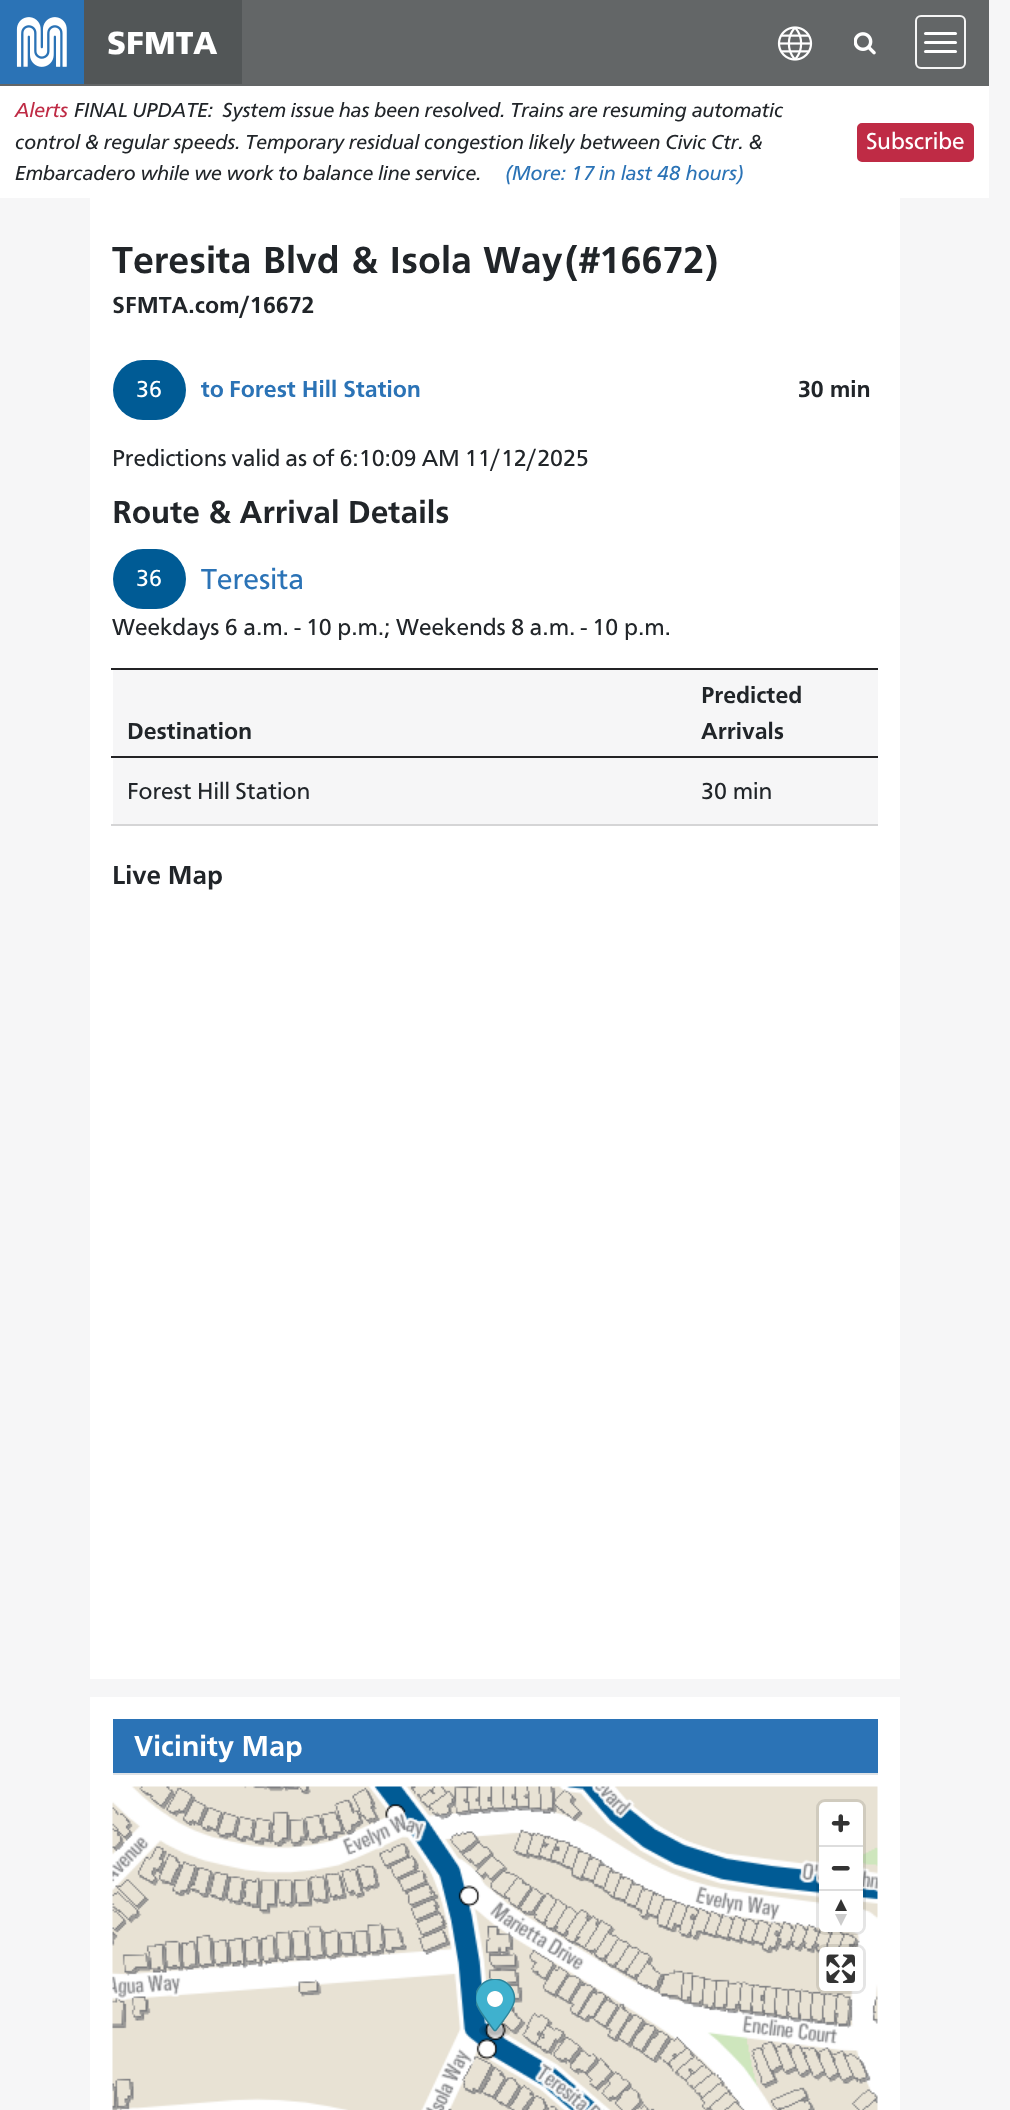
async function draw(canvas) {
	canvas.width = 1010;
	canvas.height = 2110;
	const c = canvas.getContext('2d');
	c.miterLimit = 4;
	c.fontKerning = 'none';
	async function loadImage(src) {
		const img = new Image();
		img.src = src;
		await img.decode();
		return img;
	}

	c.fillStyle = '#f6f6f7';
	c.fillRect(0, 0, 1010, 2110);
	c.fillStyle = '#636667';
	c.fillRect(0, 0, 989, 86);
	c.fillStyle = '#2b73b6';
	c.fillRect(0, 0, 84, 84);
	c.drawImage(await loadImage('img1.png'), 16, 17, 51, 50);
	c.fillStyle = '#525657';
	c.fillRect(84, 0, 158, 84);
	c.font = '800 33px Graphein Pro';
	c.fillStyle = '#fff';
	c.fillText('SFMTA', 107, 54);
	c.drawImage(await loadImage('img2.png'), 777, 26, 36, 35);
	c.drawImage(await loadImage('img3.png'), 854, 32, 22, 23);
	c.beginPath();
	c.roundRect(916, 16, 49, 52, 5);
	c.strokeStyle = '#f5f5f5';
	c.lineWidth = 2;
	c.stroke();
	c.beginPath();
	c.roundRect(924, 32, 33, 3, 1.5);
	c.fill();
	c.beginPath();
	c.roundRect(924, 41, 33, 3, 1.5);
	c.fill();
	c.beginPath();
	c.roundRect(924, 50, 33, 3, 1.5);
	c.fill();
	c.fillRect(0, 86, 989, 112);
	c.font = 'italic 21px Graphein Pro';
	c.fillStyle = '#bf2b45';
	c.fillText('Alerts', 15, 117);
	c.wordSpacing = '-0.5px';
	c.fillStyle = '#212529';
	c.fillText('FINAL UPDATE:', 74, 117);
	c.fillText('System issue has been resolved. Trains are resuming', 222, 117);
	c.fillText('automatic', 692, 117);
	c.fillText('control & regular speeds. Temporary residual congestion likely', 15, 149);
	c.fillText('between Civic Ctr. &', 580, 149);
	c.wordSpacing = '-0.25px';
	c.fillText('Embarcadero while we work to balance line service.', 15, 180);
	c.wordSpacing = '0px';
	c.fillStyle = '#2b73b6';
	c.fillText('(More: 17', 505, 180);
	c.fillText('in last 48 hours)', 599, 180);
	c.fillStyle = '#bf2b45';
	c.beginPath();
	c.roundRect(858, 124, 115, 37, 4);
	c.fill();
	c.strokeStyle = '#bf2b45';
	c.stroke();
	c.font = '24px Graphein Pro';
	c.fillStyle = '#fff';
	c.fillText('Subscribe', 866, 149);
	c.fillRect(90, 198, 810, 1481);
	c.wordSpacing = '1.5px';
	c.font = 'bold 39px Graphein Pro';
	c.fillStyle = '#212529';
	c.fillText('Teresita Blvd & Isola Way', 112, 273);
	c.wordSpacing = '0px';
	c.fillText('(#16672)', 565, 273);
	c.font = 'bold 24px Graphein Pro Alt';
	c.fillText('SFMTA.com/16672', 112, 313);
	c.fillStyle = '#005b95';
	c.beginPath();
	c.roundRect(113, 360, 73, 60, 30);
	c.fill();
	c.font = '24px Graphein Pro';
	c.fillStyle = '#fff';
	c.fillText('36', 136, 397);
	c.font = 'bold 24px Graphein Pro';
	c.fillStyle = '#2b73b6';
	c.fillText('to', 201, 397);
	c.fillText('Forest Hill Station', 229, 397);
	c.fillStyle = '#212529';
	c.fillText('30 min', 798, 397);
	c.wordSpacing = '-1px';
	c.font = '24px Graphein Pro Alt';
	c.fillText('Predictions valid as of 6:10:09 AM 11/12/2025', 112, 466);
	c.wordSpacing = '0px';
	c.font = 'bold 33px Graphein Pro';
	c.fillText('Route & Arrival Details', 112, 523);
	c.fillStyle = '#005b95';
	c.beginPath();
	c.roundRect(113, 549, 73, 60, 30);
	c.fill();
	c.font = '24px Graphein Pro';
	c.fillStyle = '#fff';
	c.fillText('36', 136, 586);
	c.font = '30px Graphein Pro';
	c.fillStyle = '#2b73b6';
	c.fillText('Teresita', 201, 589);
	c.wordSpacing = '-0.5px';
	c.font = '24px Graphein Pro Alt';
	c.fillStyle = '#212529';
	c.fillText('Weekdays 6 a.m. - 10 p.m.; Weekends 8 a.m. - 10', 112, 635);
	c.fillText('p.m.', 624, 635);
	c.fillStyle = '#f6f6f7';
	c.fillRect(113, 670, 765, 86);
	c.wordSpacing = '0px';
	c.font = 'bold 24px Graphein Pro';
	c.fillStyle = '#212529';
	c.fillText('Destination', 127, 739);
	c.fillStyle = '#232325';
	c.fillRect(111, 668, 767, 2);
	c.fillRect(111, 756, 767, 2);
	c.fillStyle = '#212529';
	c.fillText('Predicted', 701, 703);
	c.fillText('Arrivals', 701, 739);
	c.fillStyle = '#d5d5d6';
	c.fillRect(111, 824, 767, 2);
	c.fillStyle = '#f6f6f7';
	c.fillRect(113, 758, 765, 66);
	c.wordSpacing = '-0.5px';
	c.font = '24px Graphein Pro';
	c.fillStyle = '#212529';
	c.fillText('Forest Hill Station', 127, 799);
	c.wordSpacing = '0px';
	c.fillText('30 min', 701, 799);
	c.font = 'bold 27px Graphein Pro';
	c.fillText('Live Map', 112, 884);
	for (const [x, y, w, h, color] of [
		[90, 1697, 810, 413, '#fff'],
		[113, 1719, 765, 54, '#2b73b6'],
		[113, 1773, 765, 2, '#dee2e6'],
	]) {
		c.fillStyle = color;
		c.fillRect(x, y, w, h);
	}
	c.font = 'bold 30px Graphein Pro';
	c.fillStyle = '#fff';
	c.fillText('Vicinity Map', 134, 1756);
	c.drawImage(await loadImage('img4.png'), 112, 1786, 766, 324);
	c.drawImage(await loadImage('img5.png'), 476, 1979, 40, 60);
	c.beginPath();
	c.roundRect(817.5, 1800.5, 47, 133, 7.5);
	c.strokeStyle = '#0000001a';
	c.lineWidth = 3;
	c.stroke();
	c.beginPath();
	c.roundRect(819, 1802, 44, 130, 6);
	c.fill();
	c.drawImage(await loadImage('img6.png'), 831, 1814, 19, 19);
	c.fillStyle = '#ddd';
	c.fillRect(819, 1845, 44, 2);
	c.drawImage(await loadImage('img7.png'), 831, 1866, 19, 5);
	c.fillRect(819, 1889, 44, 2);
	c.fillStyle = '#333';
	c.beginPath();
	c.moveTo(835, 1911);
	c.lineTo(841, 1899);
	c.lineTo(847, 1911);
	c.closePath();
	c.fill();
	c.fillStyle = '#ccc';
	c.beginPath();
	c.moveTo(835, 1914);
	c.lineTo(841, 1926);
	c.lineTo(847, 1914);
	c.closePath();
	c.fill();
	c.beginPath();
	c.roundRect(817.5, 1945.5, 47, 47, 7.5);
	c.stroke();
	c.fillStyle = '#fff';
	c.beginPath();
	c.roundRect(819, 1947, 44, 44, 6);
	c.fill();
	c.drawImage(await loadImage('img8.png'), 826, 1954, 29, 29);
}

draw(document.querySelector('canvas'));
